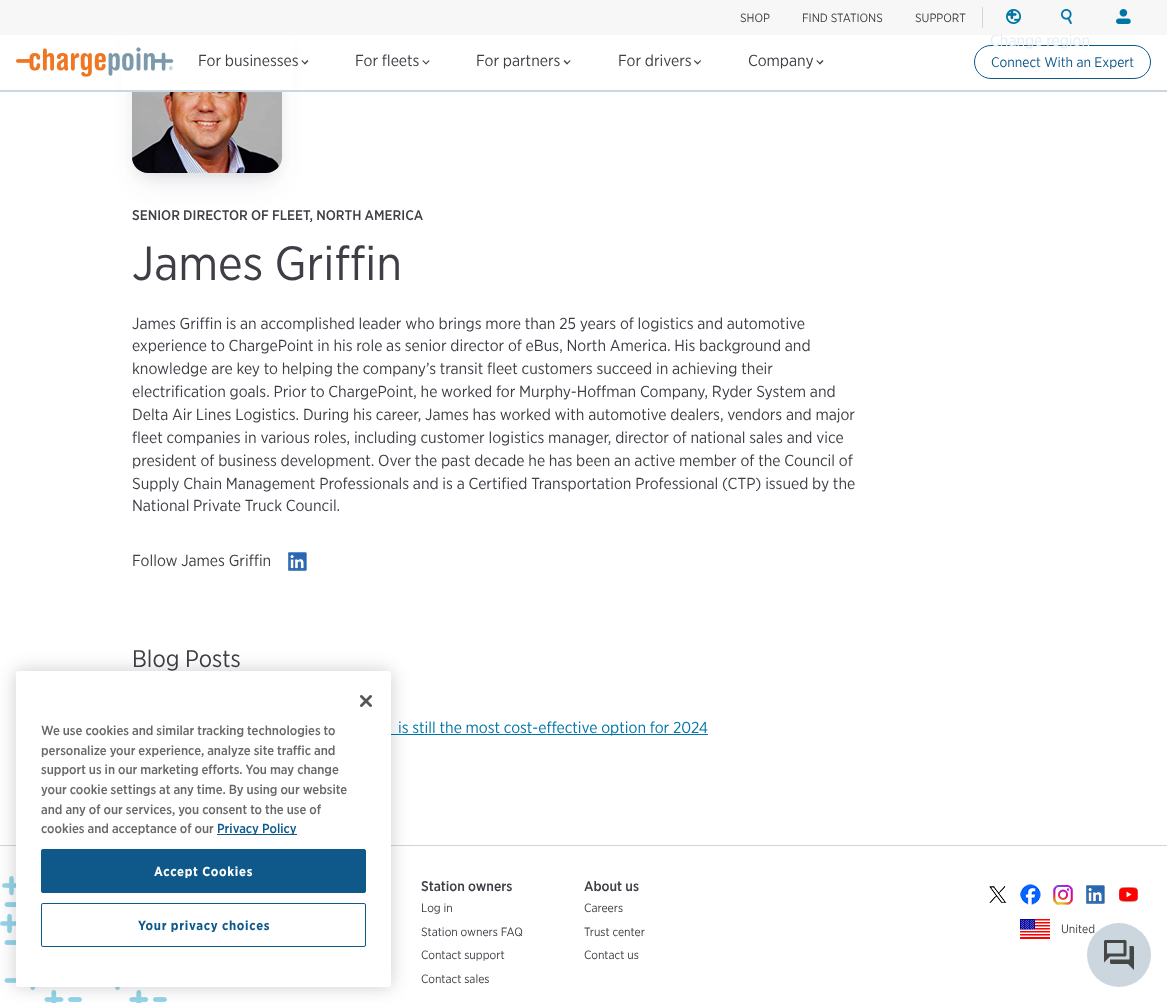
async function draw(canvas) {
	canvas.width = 1167;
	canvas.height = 1003;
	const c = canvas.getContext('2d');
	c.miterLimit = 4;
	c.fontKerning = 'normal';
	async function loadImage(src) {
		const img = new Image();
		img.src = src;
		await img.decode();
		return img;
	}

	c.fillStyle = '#fff';
	c.fillRect(0, 0, 1167, 1003);
	c.fillStyle = '#32325d1a';
	c.filter = 'blur(13.5px)';
	c.beginPath();
	c.roundRect(137, 41, 140, 140, 11);
	c.fill();
	c.filter = 'none';
	c.fillStyle = '#0000001a';
	c.filter = 'blur(8px)';
	c.beginPath();
	c.roundRect(140, 39, 134, 134, 8);
	c.fill();
	c.filter = 'none';
	c.fillStyle = '#fff';
	c.fillRect(121, 35, 172, 55);
	c.fillStyle = '#f7f7f7';
	c.fillRect(0, 0, 1167, 35);
	c.font = '12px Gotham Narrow';
	c.fillStyle = '#413d46';
	for (const [text, x, y] of [
		['SHOP', 740, 22],
		['FIND STATIONS', 802, 22],
		['SUPPORT', 915, 22],
	]) {
		c.fillText(text, x, y);
	}
	c.drawImage(await loadImage('img1.png'), 1061, 9, 11, 15);
	c.drawImage(await loadImage('img2.png'), 1116, 9, 15, 15);
	c.fillStyle = '#cbd6df';
	c.fillRect(982, 7, 1, 21);
	c.drawImage(await loadImage('img3.png'), 1006, 9, 15, 15);
	c.beginPath();
	c.roundRect(974.5, 45.5, 176, 33, 16.5);
	c.strokeStyle = '#0f588a';
	c.stroke();
	c.font = '16px Gotham Narrow';
	c.fillStyle = '#e6edf3';
	c.fillText('Change region', 990, 46);
	c.fillStyle = '#cbd6df';
	c.fillRect(0, 90, 1167, 2);
	c.drawImage(await loadImage('img4.png'), 16, 47, 158, 30);
	c.fillStyle = '#413d46';
	c.fillText('For businesses', 198, 66);
	c.beginPath();
	c.moveTo(307.5, 60);
	c.lineTo(308.5, 61);
	c.lineTo(305, 64.5);
	c.lineTo(304, 63.5);
	c.closePath();
	c.fill();
	c.beginPath();
	c.moveTo(302, 60);
	c.lineTo(305.5, 63.5);
	c.lineTo(305, 64.5);
	c.lineTo(301.5, 61);
	c.closePath();
	c.fill();
	c.fillText('For fleets', 355, 66);
	c.beginPath();
	c.moveTo(429, 60);
	c.lineTo(429.5, 61);
	c.lineTo(426, 64.5);
	c.lineTo(425.5, 63.5);
	c.closePath();
	c.fill();
	c.beginPath();
	c.moveTo(423, 60);
	c.lineTo(426.5, 63.5);
	c.lineTo(426, 64.5);
	c.lineTo(422.5, 61);
	c.closePath();
	c.fill();
	c.fillText('For partners', 476, 66);
	c.beginPath();
	c.moveTo(570, 60);
	c.lineTo(570.5, 61);
	c.lineTo(567, 64.5);
	c.lineTo(566.5, 63.5);
	c.closePath();
	c.fill();
	c.beginPath();
	c.moveTo(564.5, 60);
	c.lineTo(568, 63.5);
	c.lineTo(567, 64.5);
	c.lineTo(563.5, 61);
	c.closePath();
	c.fill();
	c.fillText('For drivers', 618, 66);
	c.beginPath();
	c.moveTo(700.5, 60);
	c.lineTo(701, 61);
	c.lineTo(697.5, 64.5);
	c.lineTo(697, 63.5);
	c.closePath();
	c.fill();
	c.beginPath();
	c.moveTo(694.5, 60);
	c.lineTo(698.5, 63.5);
	c.lineTo(697.5, 64.5);
	c.lineTo(694, 61);
	c.closePath();
	c.fill();
	c.fillText('Company', 748, 66);
	c.beginPath();
	c.moveTo(822.5, 60);
	c.lineTo(823.5, 61);
	c.lineTo(820, 64.5);
	c.lineTo(819, 63.5);
	c.closePath();
	c.fill();
	c.beginPath();
	c.moveTo(817, 60);
	c.lineTo(820.5, 63.5);
	c.lineTo(820, 64.5);
	c.lineTo(816.5, 61);
	c.closePath();
	c.fill();
	c.font = '14px Gotham Narrow';
	c.fillStyle = '#0f588a';
	c.fillText('Connect With an Expert', 991, 67);
	c.drawImage(await loadImage('img5.png'), 132, 92, 150, 81);
	c.font = '500 14px Gotham Narrow';
	c.fillStyle = '#413d46';
	c.fillText('SENIOR DIRECTOR OF FLEET, NORTH AMERICA', 132, 220);
	c.font = '48px Gotham Narrow';
	c.fillText('James Griffin', 132, 280);
	c.font = '16px Gotham Narrow';
	for (const [text, x, y] of [
		['James Griffin is an accomplished leader who brings more than 25 years of logistics and automotive', 132, 329],
		['experience to ChargePoint in his role as senior director of eBus, North America. His background and', 132, 351],
		['knowledge are key to helping the company’s transit fleet customers succeed in achieving their', 132, 374],
		['electrification goals. Prior to ChargePoint, he worked for Murphy-Hoffman Company, Ryder System and', 132, 397],
		['Delta Air Lines Logistics. During his career, James has worked with automotive dealers, vendors and major', 132, 420],
		['fleet companies in various roles, including customer logistics manager, director of national sales and vice', 132, 443],
		['president of business development. Over the past decade he has been an active member of the Council of', 132, 466],
		['Supply Chain Management Professionals and is a Certified Transportation Professional (CTP) issued by the', 132, 489],
		['National Private Truck Council.', 132, 511],
		['Follow James Griffin', 132, 566],
	]) {
		c.fillText(text, x, y);
	}
	c.drawImage(await loadImage('img6.png'), 288, 552, 19, 19);
	c.font = '24px Gotham Narrow';
	c.fillText('Blog Posts', 132, 667);
	c.fillStyle = '#0076a8';
	c.fillRect(391, 734, 317, 1);
	c.font = '16px Gotham Narrow';
	c.fillText('is still the most cost-effective option for 2024', 398, 733);
	c.fillStyle = '#cbd6df';
	c.fillRect(0, 845, 1167, 1);
	c.drawImage(await loadImage('img7.png'), 0, 876, 167, 127);
	c.font = '500 14px Gotham Narrow';
	c.fillStyle = '#413d46';
	c.fillText('Station owners', 421, 891);
	c.font = '12px Gotham Narrow';
	for (const [text, x, y] of [
		['Log in', 421, 912],
		['Station owners FAQ', 421, 936],
		['Contact support', 421, 959],
		['Contact sales', 421, 983],
	]) {
		c.fillText(text, x, y);
	}
	c.font = '500 14px Gotham Narrow';
	c.fillText('About us', 584, 891);
	c.font = '12px Gotham Narrow';
	for (const [text, x, y] of [
		['Careers', 584, 912],
		['Trust center', 584, 936],
		['Contact us', 584, 959],
	]) {
		c.fillText(text, x, y);
	}
	c.drawImage(await loadImage('img8.png'), 989, 886, 18, 17);
	c.drawImage(await loadImage('img9.png'), 1020, 884, 21, 21);
	c.drawImage(await loadImage('img10.png'), 1053, 885, 20, 20);
	c.drawImage(await loadImage('img6.png'), 1086, 885, 19, 19);
	c.drawImage(await loadImage('img11.png'), 1119, 887, 19, 15);
	c.drawImage(await loadImage('img12.png'), 1020, 919, 30, 20);
	c.fillText('United', 1061, 933);
	c.fillStyle = '#00000033';
	c.filter = 'blur(9px)';
	c.beginPath();
	c.roundRect(16, 671, 375, 316, 2.5);
	c.fill();
	c.filter = 'none';
	c.fillStyle = '#fff';
	c.beginPath();
	c.roundRect(16, 671, 375, 316, 2.5);
	c.fill();
	c.drawImage(await loadImage('img13.png'), 360, 695, 12, 12);
	c.font = '500 13.1px Gotham Narrow';
	c.fillStyle = '#696969';
	for (const [text, x, y] of [
		['We use cookies and similar tracking technologies to', 41, 735],
		['personalize your experience, analyze site traffic and', 41, 755],
		['support us in our marketing efforts. You may change', 41, 774],
		['your cookie settings at any time. By using our website', 41, 794],
		['and any of our services, you consent to the use of', 41, 814],
		['cookies and acceptance of our', 41, 833],
	]) {
		c.fillText(text, x, y);
	}
	c.fillStyle = '#0f588a';
	c.fillRect(217, 834, 80, 1);
	c.fillText('Privacy Policy', 217, 833);
	c.beginPath();
	c.roundRect(41.5, 849.5, 324, 43, 1.5);
	c.fill();
	c.stroke();
	c.letterSpacing = '0.7px';
	c.font = 'bold 13.1px Gotham Narrow';
	c.fillStyle = '#fff';
	c.fillText('Accept Cookies', 154, 876);
	c.beginPath();
	c.roundRect(41.5, 903.5, 324, 43, 1.5);
	c.stroke();
	c.fillStyle = '#0f588a';
	c.fillText('Your privacy choices', 138, 930);
	c.fillStyle = '#cbd6df';
	c.beginPath();
	c.arc(1119, 955, 32, 0, 2 * Math.PI);
	c.fill();
	c.drawImage(await loadImage('img14.png'), 1104, 940, 30, 30);
}

draw(document.querySelector('canvas'));
